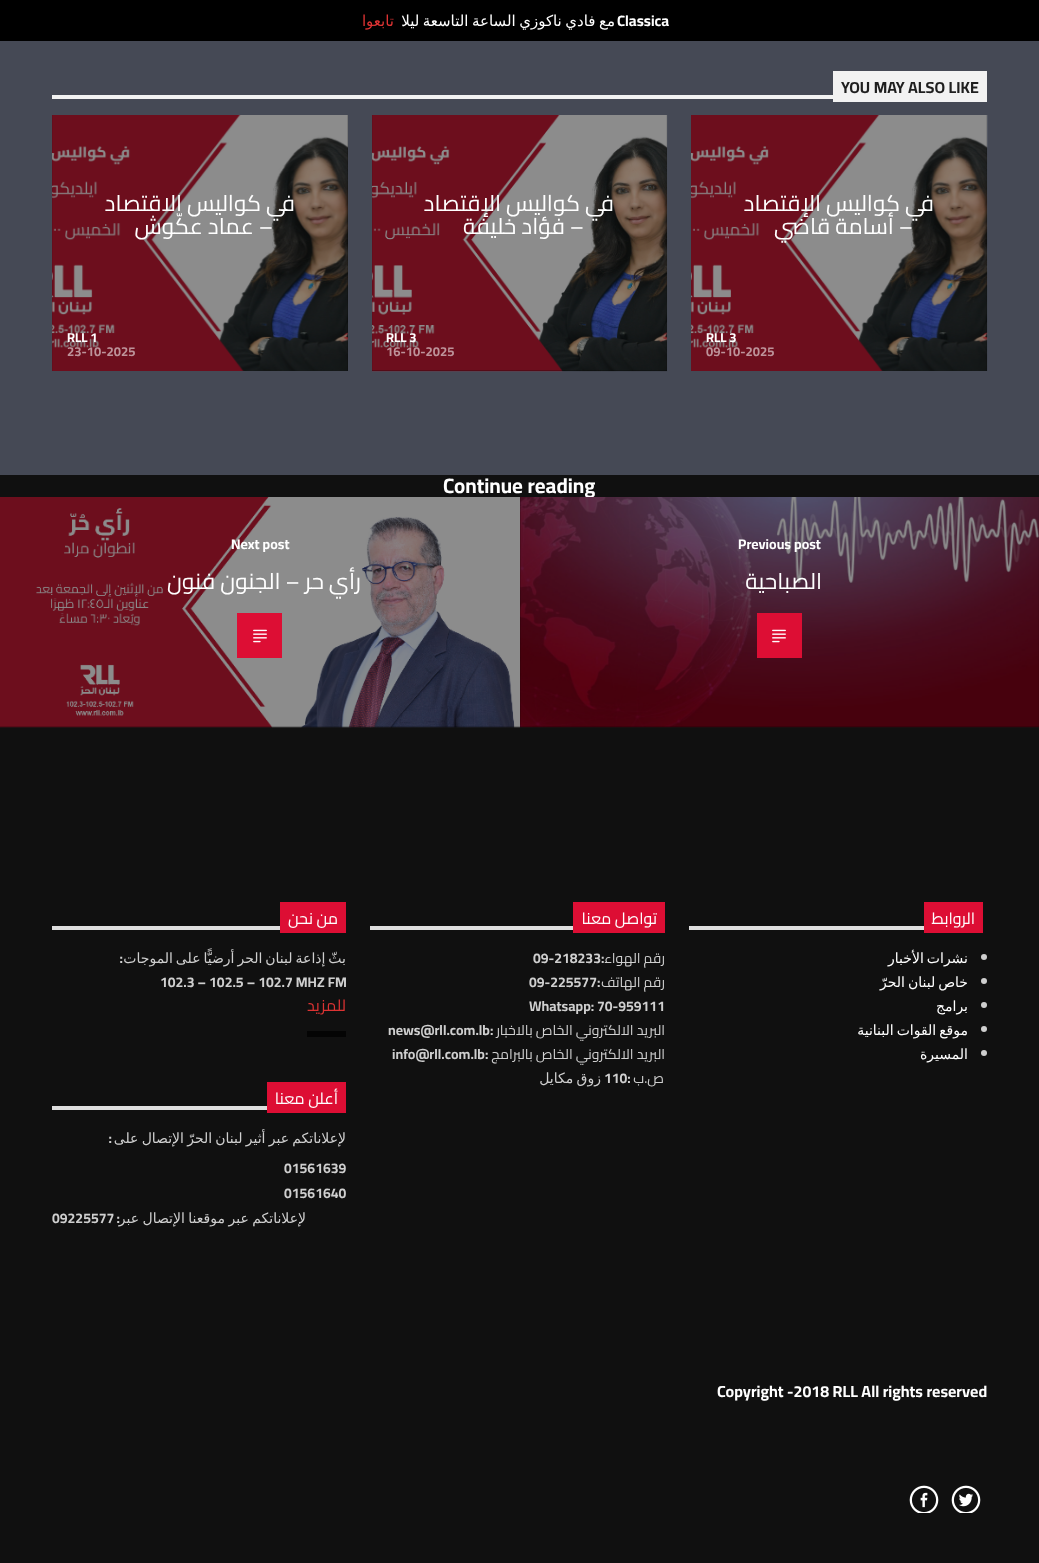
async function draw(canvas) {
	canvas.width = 1039;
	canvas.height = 1563;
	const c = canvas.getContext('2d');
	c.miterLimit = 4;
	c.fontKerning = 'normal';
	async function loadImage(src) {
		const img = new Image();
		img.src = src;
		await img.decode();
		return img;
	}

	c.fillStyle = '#454955';
	c.fillRect(0, 0, 1039, 1563);
	c.fillStyle = '#000';
	c.fillRect(0, 0, 1039, 41);
	c.wordSpacing = '-1.25px';
	c.direction = 'rtl';
	c.font = '15px DejaVu Sans';
	c.fillStyle = '#fff';
	c.fillText('مع فادي ناكوزي الساعة التاسعة ليلا', 615, 26);
	c.wordSpacing = '0px';
	c.direction = 'ltr';
	c.font = 'bold 15px Cairo';
	c.fillText('Classica', 617, 26);
	c.direction = 'rtl';
	c.font = '15px DejaVu Sans';
	c.fillStyle = '#d33';
	c.fillText('تابعوا', 394, 26);
	c.fillStyle = '#f2f2f2';
	c.fillRect(52, 95, 781, 4);
	c.fillRect(833, 71, 154, 31);
	c.direction = 'ltr';
	c.font = 'bold 16px Cairo';
	c.fillStyle = '#1f1f1f';
	c.fillText('YOU MAY ALSO LIKE', 841, 93);
	c.fillStyle = '#000';
	c.fillRect(691, 115, 296, 256);
	c.drawImage(await loadImage('img1.png'), 691, 115, 297, 256);
	c.direction = 'rtl';
	c.font = '22.5px Cairo';
	c.fillStyle = '#fff';
	c.fillText('في كواليس الإقتصاد', 934, 211);
	c.fillText('– أسامة قاضي', 913, 234);
	c.direction = 'ltr';
	c.font = 'bold 13px Cairo';
	c.fillText('RLL 3', 706, 342);
	c.fillStyle = '#bd939a';
	c.fillText('09-10-2025', 706, 356);
	c.fillStyle = '#000';
	c.fillRect(372, 115, 295, 256);
	c.drawImage(await loadImage('img2.png'), 372, 115, 296, 257);
	c.direction = 'rtl';
	c.font = '22.5px Cairo';
	c.fillStyle = '#fff';
	c.fillText('في كواليس الإقتصاد', 614, 211);
	c.fillText('– فؤاد خليفة', 584, 234);
	c.direction = 'ltr';
	c.font = 'bold 13px Cairo';
	c.fillText('RLL 3', 386, 342);
	c.fillStyle = '#bd939a';
	c.fillText('16-10-2025', 386, 356);
	c.fillStyle = '#000';
	c.fillRect(52, 115, 296, 256);
	c.drawImage(await loadImage('img3.png'), 52, 115, 296, 256);
	c.direction = 'rtl';
	c.font = '22.5px Cairo';
	c.fillStyle = '#fff';
	c.fillText('في كواليس الاقتصاد', 295, 211);
	c.fillText('– عماد عكّوش', 273, 234);
	c.direction = 'ltr';
	c.font = 'bold 13px Cairo';
	c.fillText('RLL 1', 67, 342);
	c.fillStyle = '#bd939a';
	c.fillText('23-10-2025', 67, 356);
	c.fillStyle = '#101010';
	c.fillRect(0, 475, 1039, 292);
	c.font = 'bold 20.75px Cairo';
	c.fillStyle = '#fff';
	c.fillText('Continue reading', 443, 493);
	c.fillStyle = '#000';
	c.fillRect(0, 497, 1039, 230);
	c.drawImage(await loadImage('img4.png'), 520, 497, 519, 231);
	c.font = 'bold 14px Cairo';
	c.fillStyle = '#fff';
	c.fillText('Previous post', 738, 549);
	c.direction = 'rtl';
	c.font = '22.5px Cairo';
	c.fillText('الصباحية', 822, 589);
	c.fillStyle = '#dd0e34';
	c.fillRect(757, 613, 45, 45);
	c.drawImage(await loadImage('img5.png'), 772, 629, 14, 14);
	c.drawImage(await loadImage('img6.png'), 0, 497, 520, 231);
	c.direction = 'ltr';
	c.font = 'bold 14px Cairo';
	c.fillStyle = '#fff';
	c.fillText('Next post', 231, 549);
	c.direction = 'rtl';
	c.font = '22.5px Cairo';
	c.fillText('رأي حر – الجنون فنون', 361, 589);
	c.fillStyle = '#dd0e34';
	c.fillRect(237, 613, 45, 45);
	c.drawImage(await loadImage('img5.png'), 253, 629, 14, 14);
	for (const [x, y, w, h, color] of [
		[0, 767, 1039, 796, '#101010'],
		[689, 926, 235, 4, '#dedede'],
		[924, 902, 59, 31, '#dd0e34'],
	]) {
		c.fillStyle = color;
		c.fillRect(x, y, w, h);
	}
	c.font = '16px Cairo';
	c.fillStyle = '#fff';
	c.fillText('الروابط', 975, 924);
	c.fillStyle = '#cfcfcf';
	c.beginPath();
	c.arc(984, 957, 3, 0, 2 * Math.PI);
	c.fill();
	c.wordSpacing = '-1.5px';
	c.font = '14px DejaVu Sans';
	c.fillStyle = '#fff';
	c.fillText('نشرات الأخبار', 968, 963);
	c.fillStyle = '#cfcfcf';
	c.beginPath();
	c.arc(984, 981, 3, 0, 2 * Math.PI);
	c.fill();
	c.fillStyle = '#fff';
	c.fillText('خاص لبنان الحرّ', 968, 987);
	c.fillStyle = '#cfcfcf';
	c.beginPath();
	c.arc(984, 1005, 3, 0, 2 * Math.PI);
	c.fill();
	c.wordSpacing = '0px';
	c.fillStyle = '#fff';
	c.fillText('برامج', 968, 1011);
	c.fillStyle = '#cfcfcf';
	c.beginPath();
	c.arc(984, 1029, 3, 0, 2 * Math.PI);
	c.fill();
	c.wordSpacing = '-1.5px';
	c.fillStyle = '#fff';
	c.fillText('موقع القوات البنانية', 968, 1035);
	c.fillStyle = '#cfcfcf';
	c.beginPath();
	c.arc(984, 1053, 3, 0, 2 * Math.PI);
	c.fill();
	c.wordSpacing = '0px';
	c.fillStyle = '#fff';
	c.fillText('المسيرة', 968, 1059);
	c.fillStyle = '#dedede';
	c.fillRect(370, 926, 203, 4);
	c.fillStyle = '#dd0e34';
	c.fillRect(573, 902, 92, 31);
	c.font = '16px Cairo';
	c.fillStyle = '#fff';
	c.fillText('تواصل معنا', 657, 924);
	c.font = '14px Cairo';
	c.fillStyle = '#cfcfcf';
	c.fillText('رقم الهواء', 665, 963);
	c.direction = 'ltr';
	c.font = 'bold 14px Cairo';
	c.fillText('09-218233:', 533, 963);
	c.direction = 'rtl';
	c.font = '14px Cairo';
	c.fillText('رقم الهاتف', 665, 987);
	c.direction = 'ltr';
	c.font = 'bold 14px Cairo';
	for (const [text, x, y] of [
		['09-225577:', 529, 987],
		['70-959111', 597, 1011],
		['Whatsapp:', 529, 1011],
	]) {
		c.fillText(text, x, y);
	}
	c.direction = 'rtl';
	c.font = '14px Cairo';
	c.fillText('البريد الالكتروني الخاص بالاخبار', 665, 1035);
	c.direction = 'ltr';
	c.font = 'bold 14px Cairo';
	c.fillText('news@rll.com.lb:', 388, 1035);
	c.direction = 'rtl';
	c.font = '14px Cairo';
	c.fillText('البريد الالكتروني الخاص بالبرامج', 665, 1059);
	c.direction = 'ltr';
	c.font = 'bold 14px Cairo';
	c.fillText('info@rll.com.lb:', 392, 1059);
	c.direction = 'rtl';
	c.font = '14px Cairo';
	c.fillText('ص.ب', 664, 1083);
	c.direction = 'ltr';
	c.font = 'bold 14px Cairo';
	c.fillText('110:', 604, 1083);
	c.wordSpacing = '-1px';
	c.direction = 'rtl';
	c.font = '14px DejaVu Sans';
	c.fillText('زوق مكايل', 601, 1083);
	c.fillStyle = '#dedede';
	c.fillRect(52, 926, 228, 4);
	c.fillStyle = '#dd0e34';
	c.fillRect(280, 902, 66, 31);
	c.wordSpacing = '0px';
	c.font = '16px Cairo';
	c.fillStyle = '#fff';
	c.fillText('من نحن', 338, 924);
	c.wordSpacing = '-1.5px';
	c.font = '14px DejaVu Sans';
	c.fillStyle = '#cfcfcf';
	c.fillText('بثّ إذاعة لبنان الحر أرضيًّا على الموجات', 346, 963);
	c.wordSpacing = '0px';
	c.font = 'bold 14px Cairo';
	c.fillText(':', 123, 963);
	c.direction = 'ltr';
	c.fillText('102.3 – 102.5 – 102.7 MHZ FM', 160, 987);
	c.fillStyle = '#040404';
	c.fillRect(307, 1031, 39, 6);
	c.direction = 'rtl';
	c.font = '16px Cairo';
	c.fillStyle = '#d33';
	c.fillText('للمزيد', 346, 1011);
	c.fillStyle = '#dedede';
	c.fillRect(52, 1106, 215, 4);
	c.fillStyle = '#dd0e34';
	c.fillRect(267, 1082, 79, 31);
	c.fillStyle = '#fff';
	c.fillText('أعلن معنا', 338, 1104);
	c.wordSpacing = '-1.25px';
	c.font = '14px DejaVu Sans';
	c.fillStyle = '#cfcfcf';
	c.fillText('لإعلاناتكم عبر أثير لبنان الحرّ الإتصال على', 346, 1143);
	c.wordSpacing = '0px';
	c.font = 'bold 14px Cairo';
	c.fillText(':', 112, 1143);
	c.direction = 'ltr';
	c.fillText('01561639', 284, 1173);
	c.fillText('01561640', 284, 1198);
	c.wordSpacing = '-1px';
	c.direction = 'rtl';
	c.font = '14px DejaVu Sans';
	c.fillText('لإعلاناتكم عبر موقعنا الإتصال عبر', 306, 1223);
	c.wordSpacing = '0px';
	c.font = 'bold 14px Cairo';
	c.fillText(':', 120, 1223);
	c.direction = 'ltr';
	c.fillText('09225577', 52, 1223);
	c.font = 'bold 16px Cairo';
	c.fillStyle = '#fff';
	c.fillText('Copyright -2018 RLL All rights reserved', 717, 1397);
	c.drawImage(await loadImage('img7.png'), 951, 1485, 30, 28);
	c.drawImage(await loadImage('img8.png'), 909, 1485, 30, 28);
}

draw(document.querySelector('canvas'));
